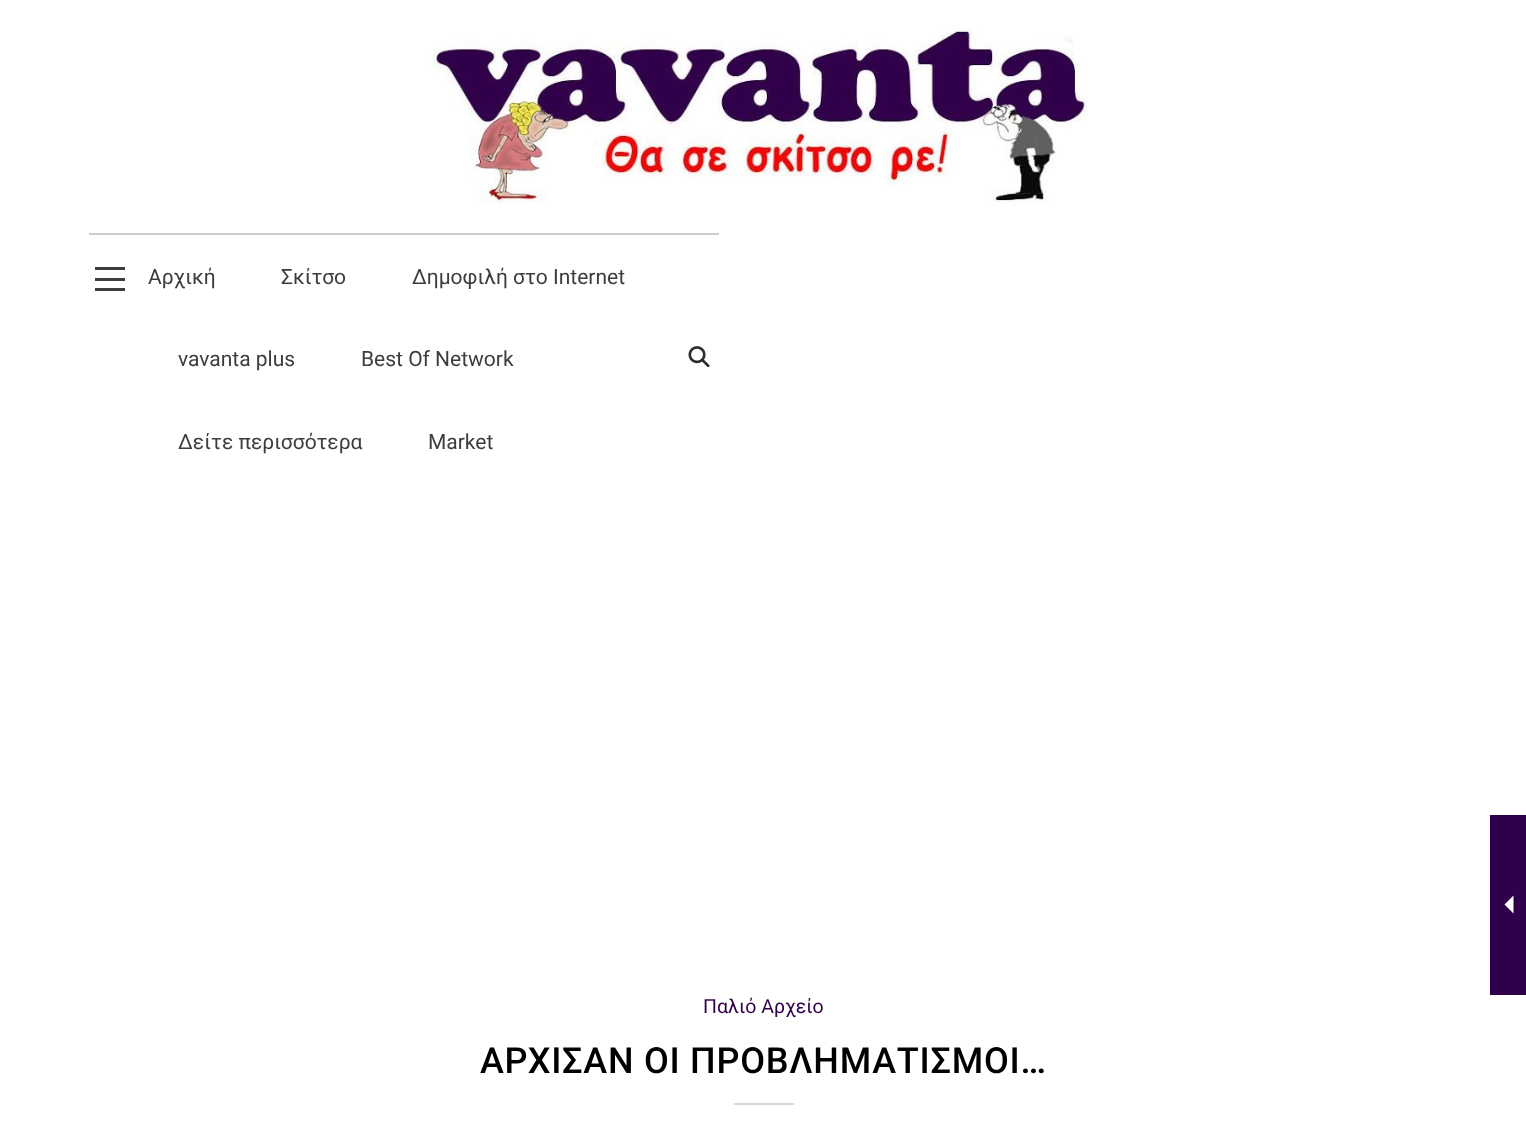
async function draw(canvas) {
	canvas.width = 1526;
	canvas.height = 1121;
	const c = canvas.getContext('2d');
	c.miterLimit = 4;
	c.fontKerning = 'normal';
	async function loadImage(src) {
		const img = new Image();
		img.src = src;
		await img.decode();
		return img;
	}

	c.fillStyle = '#fff';
	c.fillRect(0, 0, 1526, 1121);
	c.drawImage(await loadImage('img1.png'), 426, 27, 662, 176);
	for (const [x, y, w, h, color] of [
		[89, 233, 630, 2, '#ccc'],
		[95, 267, 30, 3, '#3d3d3d'],
		[95, 278, 30, 3, '#3d3d3d'],
		[95, 288, 30, 3, '#3d3d3d'],
	]) {
		c.fillStyle = color;
		c.fillRect(x, y, w, h);
	}
	c.font = '21px Roboto';
	for (const [text, x, y] of [
		['Αρχική', 148, 284],
		['Σκίτσο', 281, 284],
		['Δημοφιλή στο Internet', 412, 284],
		['vavanta plus', 178, 366],
		['Best Of Network', 361, 366],
		['Δείτε περισσότερα', 178, 449],
		['Market', 428, 449],
	]) {
		c.fillText(text, x, y);
	}
	c.drawImage(await loadImage('img2.png'), 688, 346, 22, 22);
	c.fillStyle = '#30004a';
	c.fillRect(1490, 815, 36, 180);
	c.fillStyle = '#fff';
	c.beginPath();
	c.moveTo(1513.5, 895.5);
	c.lineTo(1513.5, 913.5);
	c.lineTo(1504.5, 904.5);
	c.closePath();
	c.fill();
	c.font = '19.5px Roboto';
	c.fillStyle = '#30004a';
	c.fillText('Παλιό Αρχείο', 703, 1013);
	c.letterSpacing = '0.75px';
	c.font = '500 36px Roboto';
	c.fillStyle = '#000';
	c.fillText('ΑΡΧΙΣΑΝ ΟΙ ΠΡΟΒΛΗΜΑΤΙΣΜΟΙ…', 480, 1073);
	c.fillStyle = '#d7d7d7';
	c.fillRect(734, 1103, 60, 2);
}

draw(document.querySelector('canvas'));
